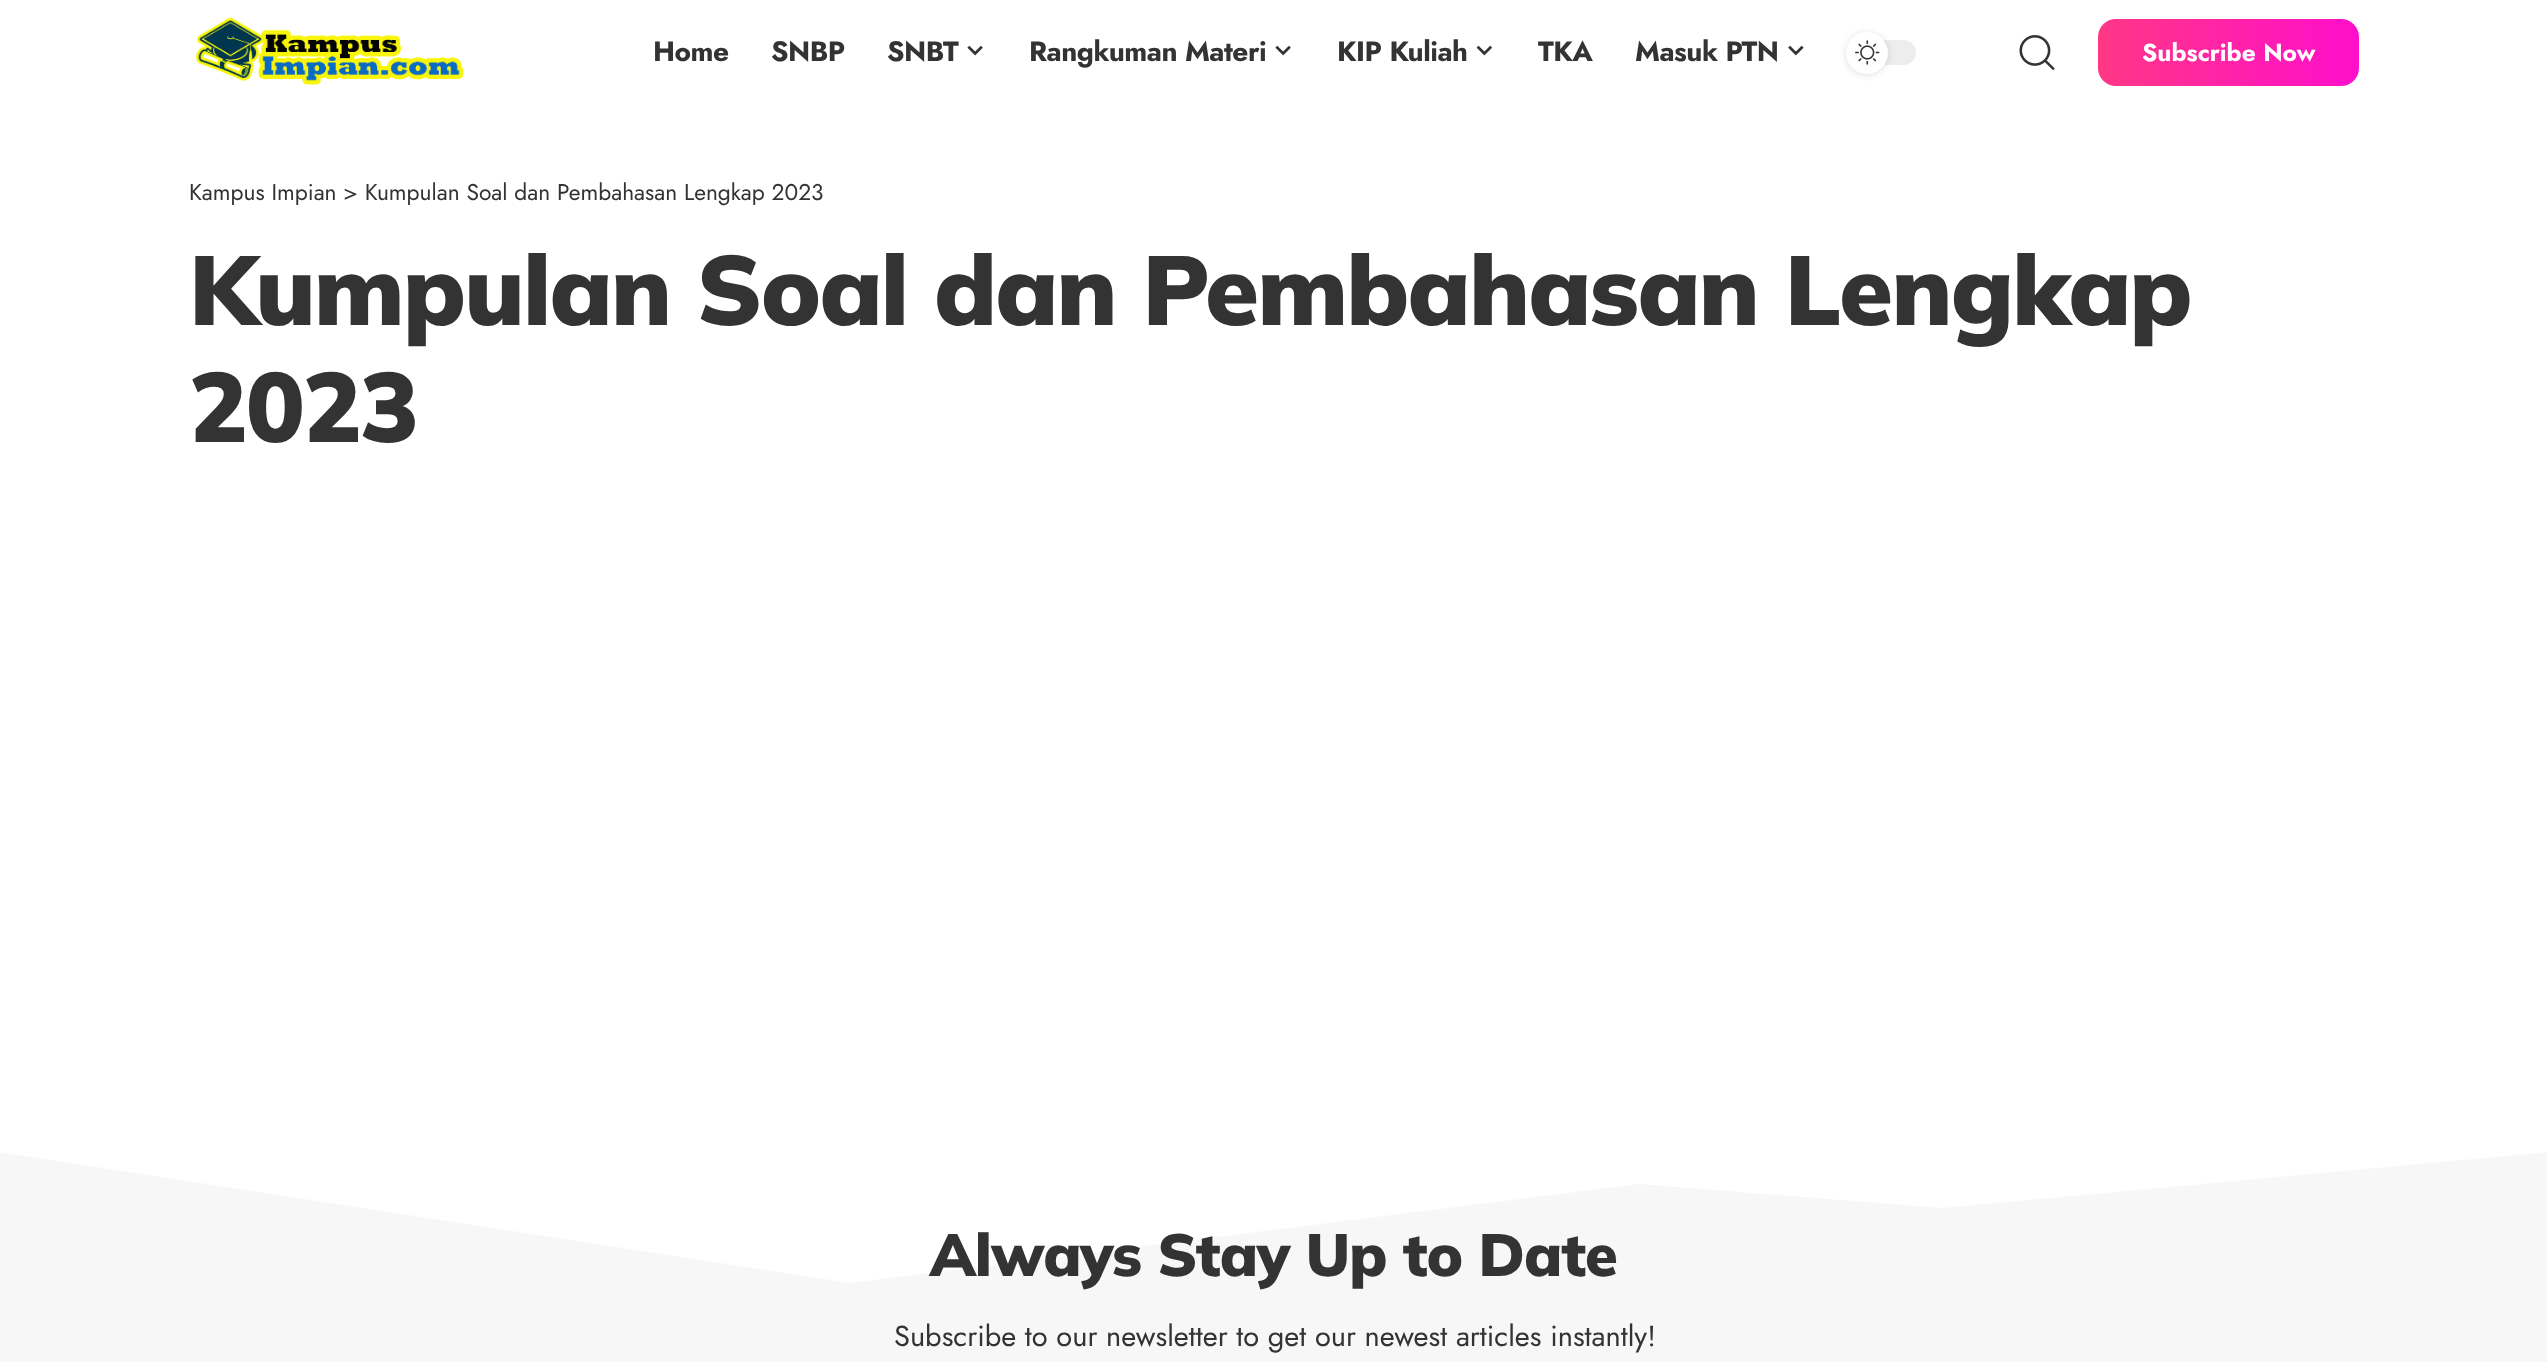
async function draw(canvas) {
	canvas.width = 2547;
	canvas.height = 1362;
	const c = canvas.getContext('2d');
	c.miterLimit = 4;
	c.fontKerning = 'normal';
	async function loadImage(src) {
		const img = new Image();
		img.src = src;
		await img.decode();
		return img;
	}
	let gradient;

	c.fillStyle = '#fff';
	c.fillRect(0, 0, 2547, 1362);
	c.drawImage(await loadImage('img1.png'), 196, 17, 268, 68);
	c.letterSpacing = '-0.5px';
	c.font = 'bold 28px Jost';
	c.fillStyle = '#333';
	for (const [text, x, y] of [
		['Home', 653, 61],
		['SNBP', 771, 61],
		['SNBT', 887, 61],
	]) {
		c.fillText(text, x, y);
	}
	c.drawImage(await loadImage('img2.png'), 967, 45, 16, 11);
	c.fillText('Rangkuman Materi', 1029, 61);
	c.drawImage(await loadImage('img2.png'), 1275, 45, 16, 11);
	c.fillText('KIP Kuliah', 1337, 61);
	c.drawImage(await loadImage('img3.png'), 1476, 45, 16, 11);
	c.fillText('TKA', 1538, 61);
	c.fillText('Masuk PTN', 1635, 61);
	c.drawImage(await loadImage('img4.png'), 1788, 45, 16, 11);
	c.fillStyle = '#ededed';
	c.beginPath();
	c.roundRect(1846, 40, 70, 25, 12.5);
	c.fill();
	c.fillStyle = '#0000001f';
	c.filter = 'blur(3.5px)';
	c.beginPath();
	c.roundRect(1846, 33, 42, 42, 21);
	c.fill();
	c.filter = 'none';
	c.fillStyle = '#fff';
	c.beginPath();
	c.arc(1867, 53, 21, 0, 2 * Math.PI);
	c.fill();
	c.drawImage(await loadImage('img5.png'), 1855, 40, 25, 25);
	c.drawImage(await loadImage('img6.png'), 2019, 35, 36, 35);
	gradient = c.createLinearGradient(2098, 53, 2359, 52);
	gradient.addColorStop(0, '#ff3785');
	gradient.addColorStop(1, '#ff0ecb');
	c.fillStyle = gradient;
	c.beginPath();
	c.roundRect(2098, 19, 261, 67, 18);
	c.fill();
	c.letterSpacing = '0px';
	c.font = 'bold 24.5px Jost';
	c.fillStyle = '#fff';
	c.fillText('Subscribe Now', 2142, 61);
	c.font = '22.75px Jost';
	c.fillStyle = '#333';
	c.fillText('Kampus Impian > Kumpulan Soal dan Pembahasan Lengkap 2023', 189, 200);
	c.letterSpacing = '-1.75px';
	c.font = '900 98px Mulish';
	c.fillText('Kumpulan Soal dan Pembahasan Lengkap', 189, 325);
	c.fillText('2023', 189, 442);
	c.fillStyle = '#f7f7f7';
	c.fillRect(0, 1152, 2547, 210);
	c.fillStyle = '#fff';
	c.beginPath();
	c.moveTo(1942, 1208);
	c.lineTo(1639, 1184);
	c.lineTo(850, 1283);
	c.lineTo(-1, 1152);
	c.lineTo(-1, 1146);
	c.lineTo(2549, 1146);
	c.lineTo(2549, 1152);
	c.fill();
	c.letterSpacing = '-0.9px';
	c.font = '900 59.5px Mulish';
	c.fillStyle = '#333';
	c.fillText('Always Stay Up to Date', 930, 1276);
	c.letterSpacing = '0px';
	c.font = '29px Jost';
	c.fillText('Subscribe to our newsletter to get our newest articles instantly!', 894, 1346);
}

draw(document.querySelector('canvas'));
